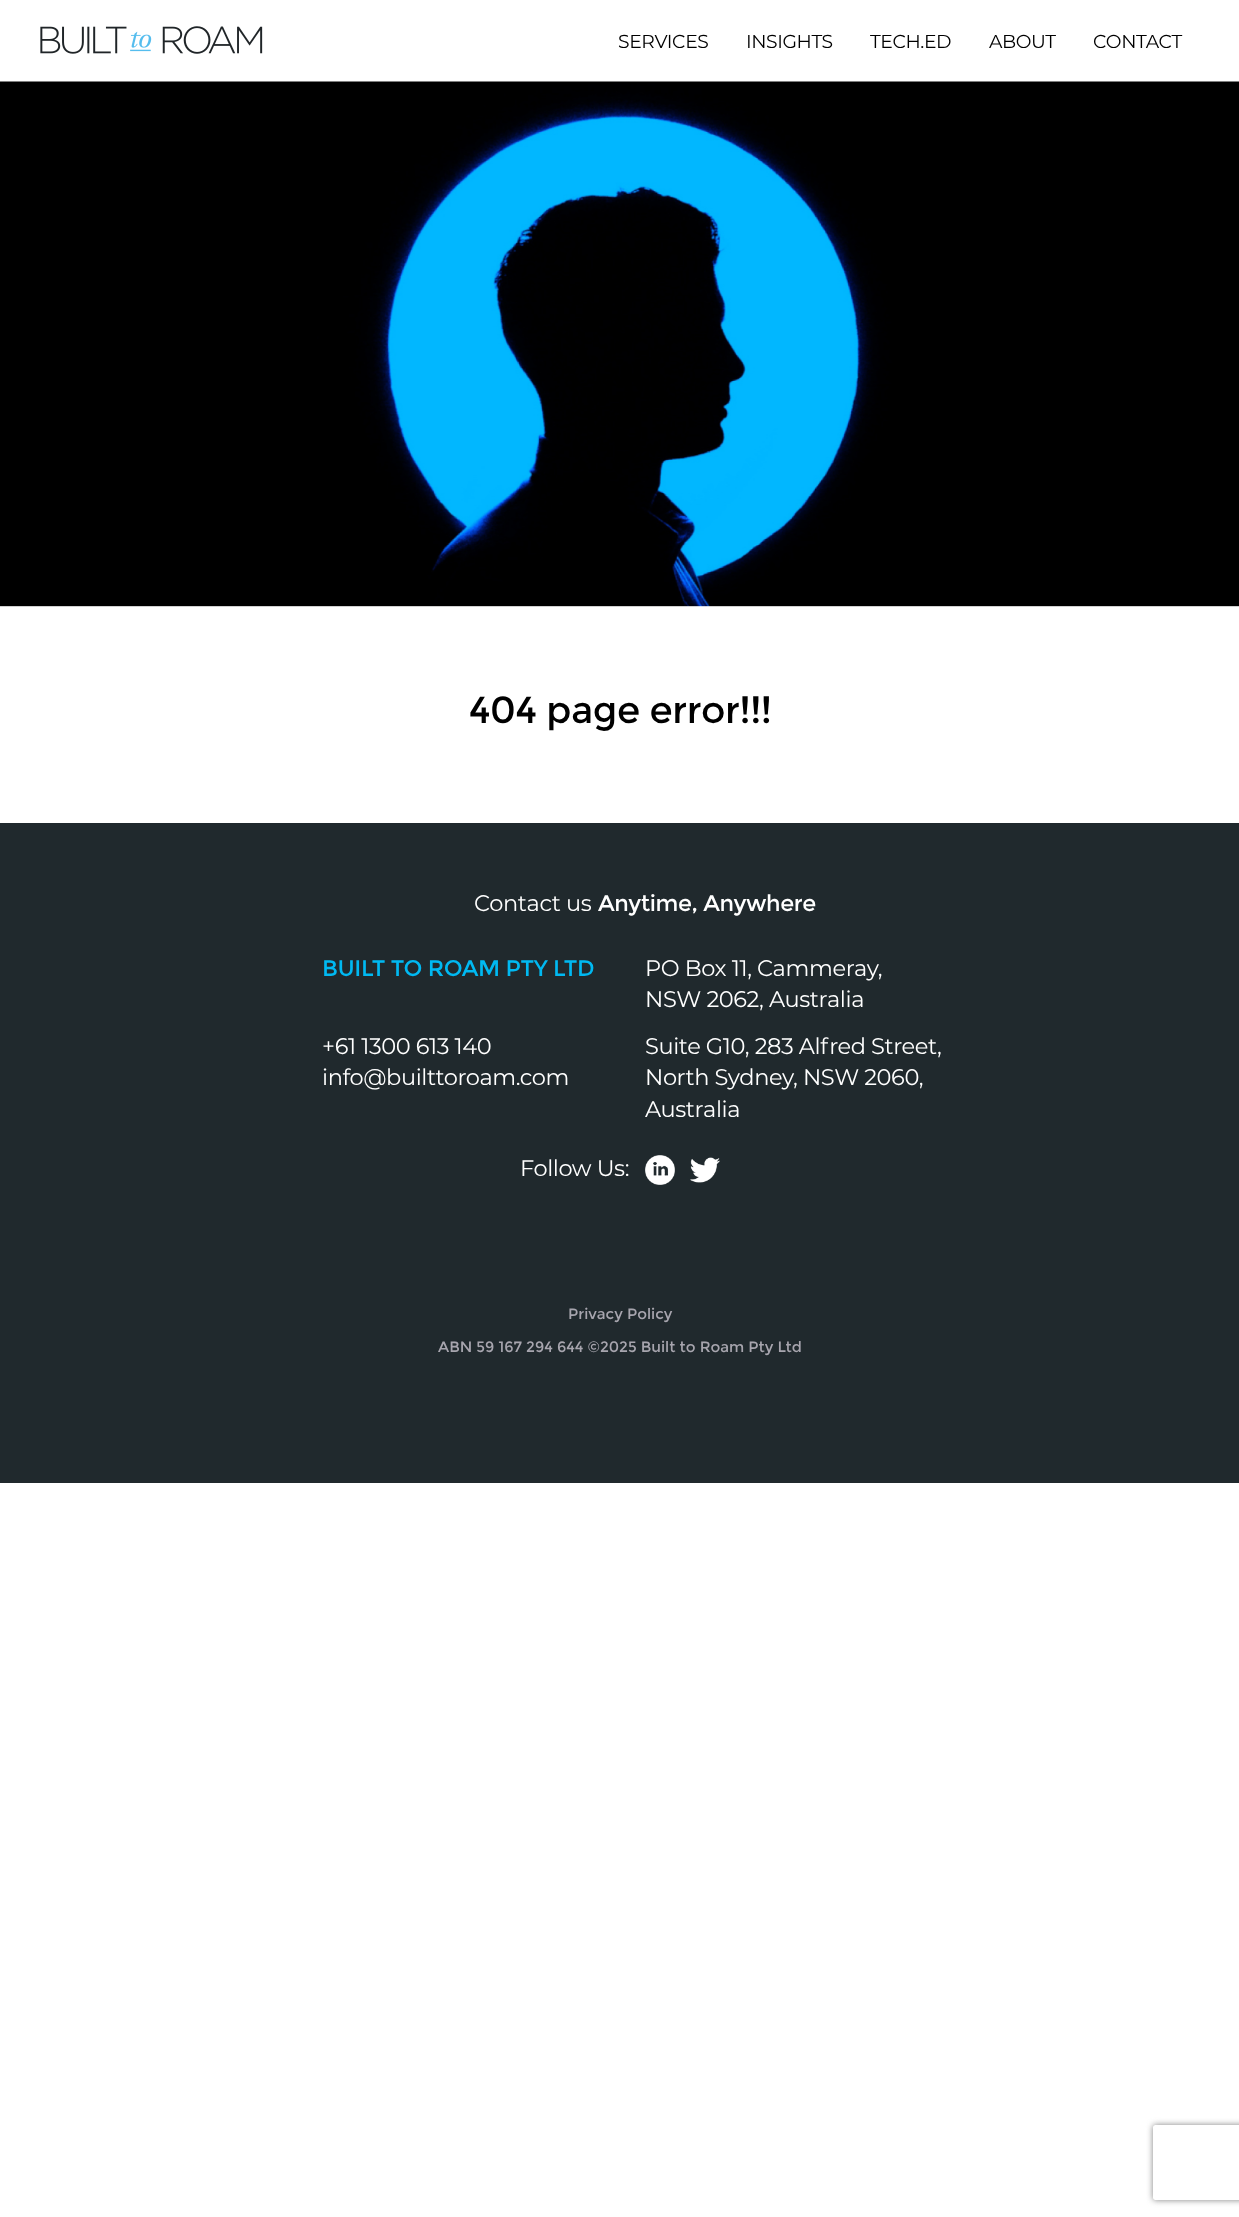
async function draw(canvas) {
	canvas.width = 1239;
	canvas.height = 2217;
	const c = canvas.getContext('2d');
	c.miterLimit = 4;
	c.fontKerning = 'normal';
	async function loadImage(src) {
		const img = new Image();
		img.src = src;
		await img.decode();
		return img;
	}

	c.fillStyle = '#fff';
	c.fillRect(0, 0, 1239, 2217);
	c.drawImage(await loadImage('img1.png'), 40, 26, 223, 28);
	c.letterSpacing = '-0.4px';
	c.font = '18.75px "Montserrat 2"';
	c.fillStyle = '#000';
	for (const [text, x, y] of [
		['SERVICES', 618, 48],
		['INSIGHTS', 746, 48],
		['TECH.ED', 870, 48],
		['ABOUT', 989, 48],
		['CONTACT', 1093, 48],
	]) {
		c.fillText(text, x, y);
	}
	c.drawImage(await loadImage('img2.png'), 0, 81, 1239, 526);
	c.font = '37.5px Montserrat';
	c.fillText('404 page error!!!', 469, 723);
	c.fillStyle = '#20292d';
	c.fillRect(0, 823, 1239, 660);
	c.font = '22.5px "Montserrat 2"';
	c.fillStyle = '#fff';
	c.fillText('Contact us', 474, 911);
	c.font = '22.5px Montserrat';
	c.fillText('Anytime, Anywhere', 598, 911);
	c.fillStyle = '#00b9f2';
	c.fillText('BUILT TO ROAM PTY LTD', 322, 976);
	c.font = '22.5px "Montserrat 2"';
	c.fillStyle = '#fff';
	for (const [text, x, y] of [
		['+61 1300 613 140', 322, 1054],
		['info@builttoroam.com', 322, 1085],
		['PO Box 11, Cammeray,', 645, 976],
		['NSW 2062, Australia', 645, 1007],
		['Suite G10, 283 Alfred Street,', 645, 1054],
		['North Sydney, NSW 2060,', 645, 1085],
		['Australia', 645, 1117],
		['Follow Us:', 520, 1176],
	]) {
		c.fillText(text, x, y);
	}
	c.drawImage(await loadImage('img3.png'), 645, 1155, 30, 30);
	c.drawImage(await loadImage('img4.png'), 690, 1157, 30, 26);
	c.letterSpacing = '0px';
	c.font = '15px Montserrat';
	c.fillStyle = '#a7a5ae';
	c.fillText('Privacy Policy', 568, 1319);
	c.fillText('ABN 59 167 294 644 ©2025 Built to Roam Pty Ltd', 438, 1352);
	c.save();
	c.beginPath();
	c.moveTo(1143, 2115);
	c.lineTo(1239, 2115);
	c.lineTo(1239, 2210);
	c.lineTo(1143, 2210);
	c.closePath();
	c.moveTo(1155.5, 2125);
	c.lineTo(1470.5, 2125);
	c.bezierCurveTo(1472, 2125, 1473, 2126, 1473, 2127.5);
	c.lineTo(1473, 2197.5);
	c.bezierCurveTo(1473, 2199, 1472, 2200, 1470.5, 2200);
	c.lineTo(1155.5, 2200);
	c.bezierCurveTo(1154, 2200, 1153, 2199, 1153, 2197.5);
	c.lineTo(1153, 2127.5);
	c.bezierCurveTo(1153, 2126, 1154, 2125, 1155.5, 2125);
	c.closePath();
	c.clip('evenodd');
	c.fillStyle = '#808080';
	c.filter = 'blur(3px)';
	c.beginPath();
	c.roundRect(1153, 2125, 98, 75, 2.5);
	c.fill();
	c.filter = 'none';
	c.restore();
}

draw(document.querySelector('canvas'));
